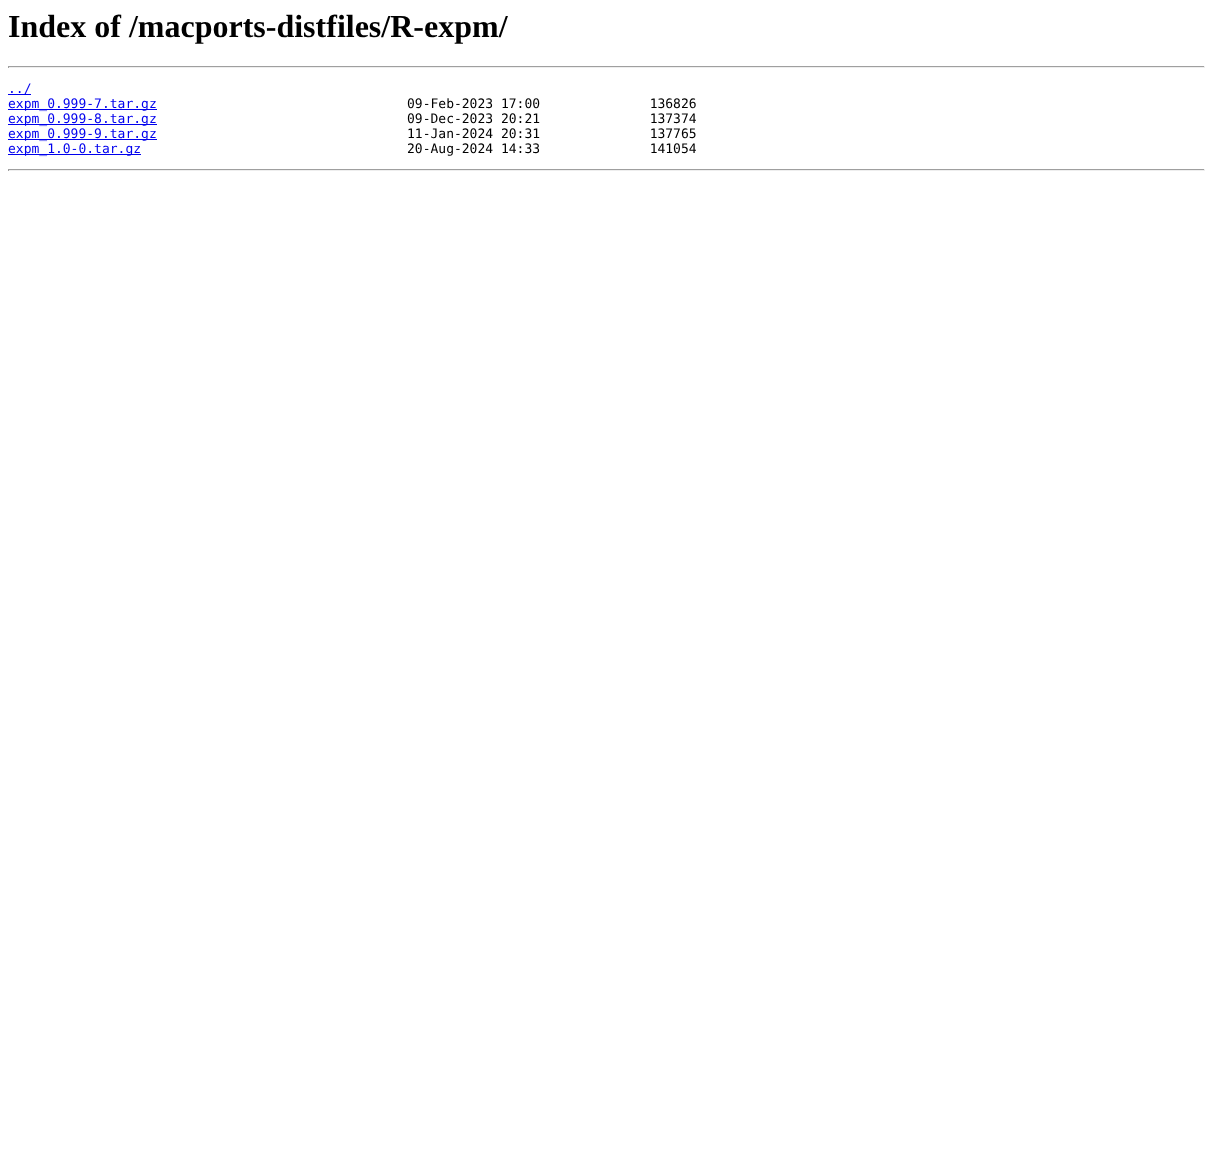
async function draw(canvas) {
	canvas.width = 1213;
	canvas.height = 1166;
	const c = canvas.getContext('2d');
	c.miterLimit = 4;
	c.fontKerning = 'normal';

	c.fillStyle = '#fff';
	c.fillRect(0, 0, 1213, 1166);
	c.font = 'bold 32px Liberation Serif';
	c.fillStyle = '#000';
	c.fillText('Index of /macports-distfiles/R-expm/', 8, 37);
	for (const [x, y, w, h, color] of [
		[8, 66, 1197, 1, '#9f9f9f'],
		[1204, 66, 1, 2, '#eee'],
		[8, 67, 1197, 1, '#eee'],
		[8, 66, 1, 2, '#9f9f9f'],
		[8, 94, 23, 1, '#00e'],
	]) {
		c.fillStyle = color;
		c.fillRect(x, y, w, h);
	}
	c.font = '13px DejaVu Sans Mono';
	c.fillText('../', 8, 93);
	c.fillRect(8, 109, 149, 1);
	c.fillText('expm_0.999-7.tar.gz', 8, 108);
	c.fillStyle = '#000';
	c.fillText('09-Feb-2023 17:00              136826', 407, 108);
	c.fillStyle = '#00e';
	c.fillRect(8, 124, 149, 1);
	c.fillText('expm_0.999-8.tar.gz', 8, 123);
	c.fillStyle = '#000';
	c.fillText('09-Dec-2023 20:21              137374', 407, 123);
	c.fillStyle = '#00e';
	c.fillRect(8, 139, 149, 1);
	c.fillText('expm_0.999-9.tar.gz', 8, 138);
	c.fillStyle = '#000';
	c.fillText('11-Jan-2024 20:31              137765', 407, 138);
	c.fillStyle = '#00e';
	c.fillRect(8, 154, 133, 1);
	c.fillText('expm_1.0-0.tar.gz', 8, 153);
	c.fillStyle = '#000';
	c.fillText('20-Aug-2024 14:33              141054', 407, 153);
	for (const [x, y, w, h, color] of [
		[8, 169, 1197, 1, '#9f9f9f'],
		[1204, 169, 1, 2, '#eee'],
		[8, 170, 1197, 1, '#eee'],
		[8, 169, 1, 2, '#9f9f9f'],
	]) {
		c.fillStyle = color;
		c.fillRect(x, y, w, h);
	}
}

draw(document.querySelector('canvas'));
